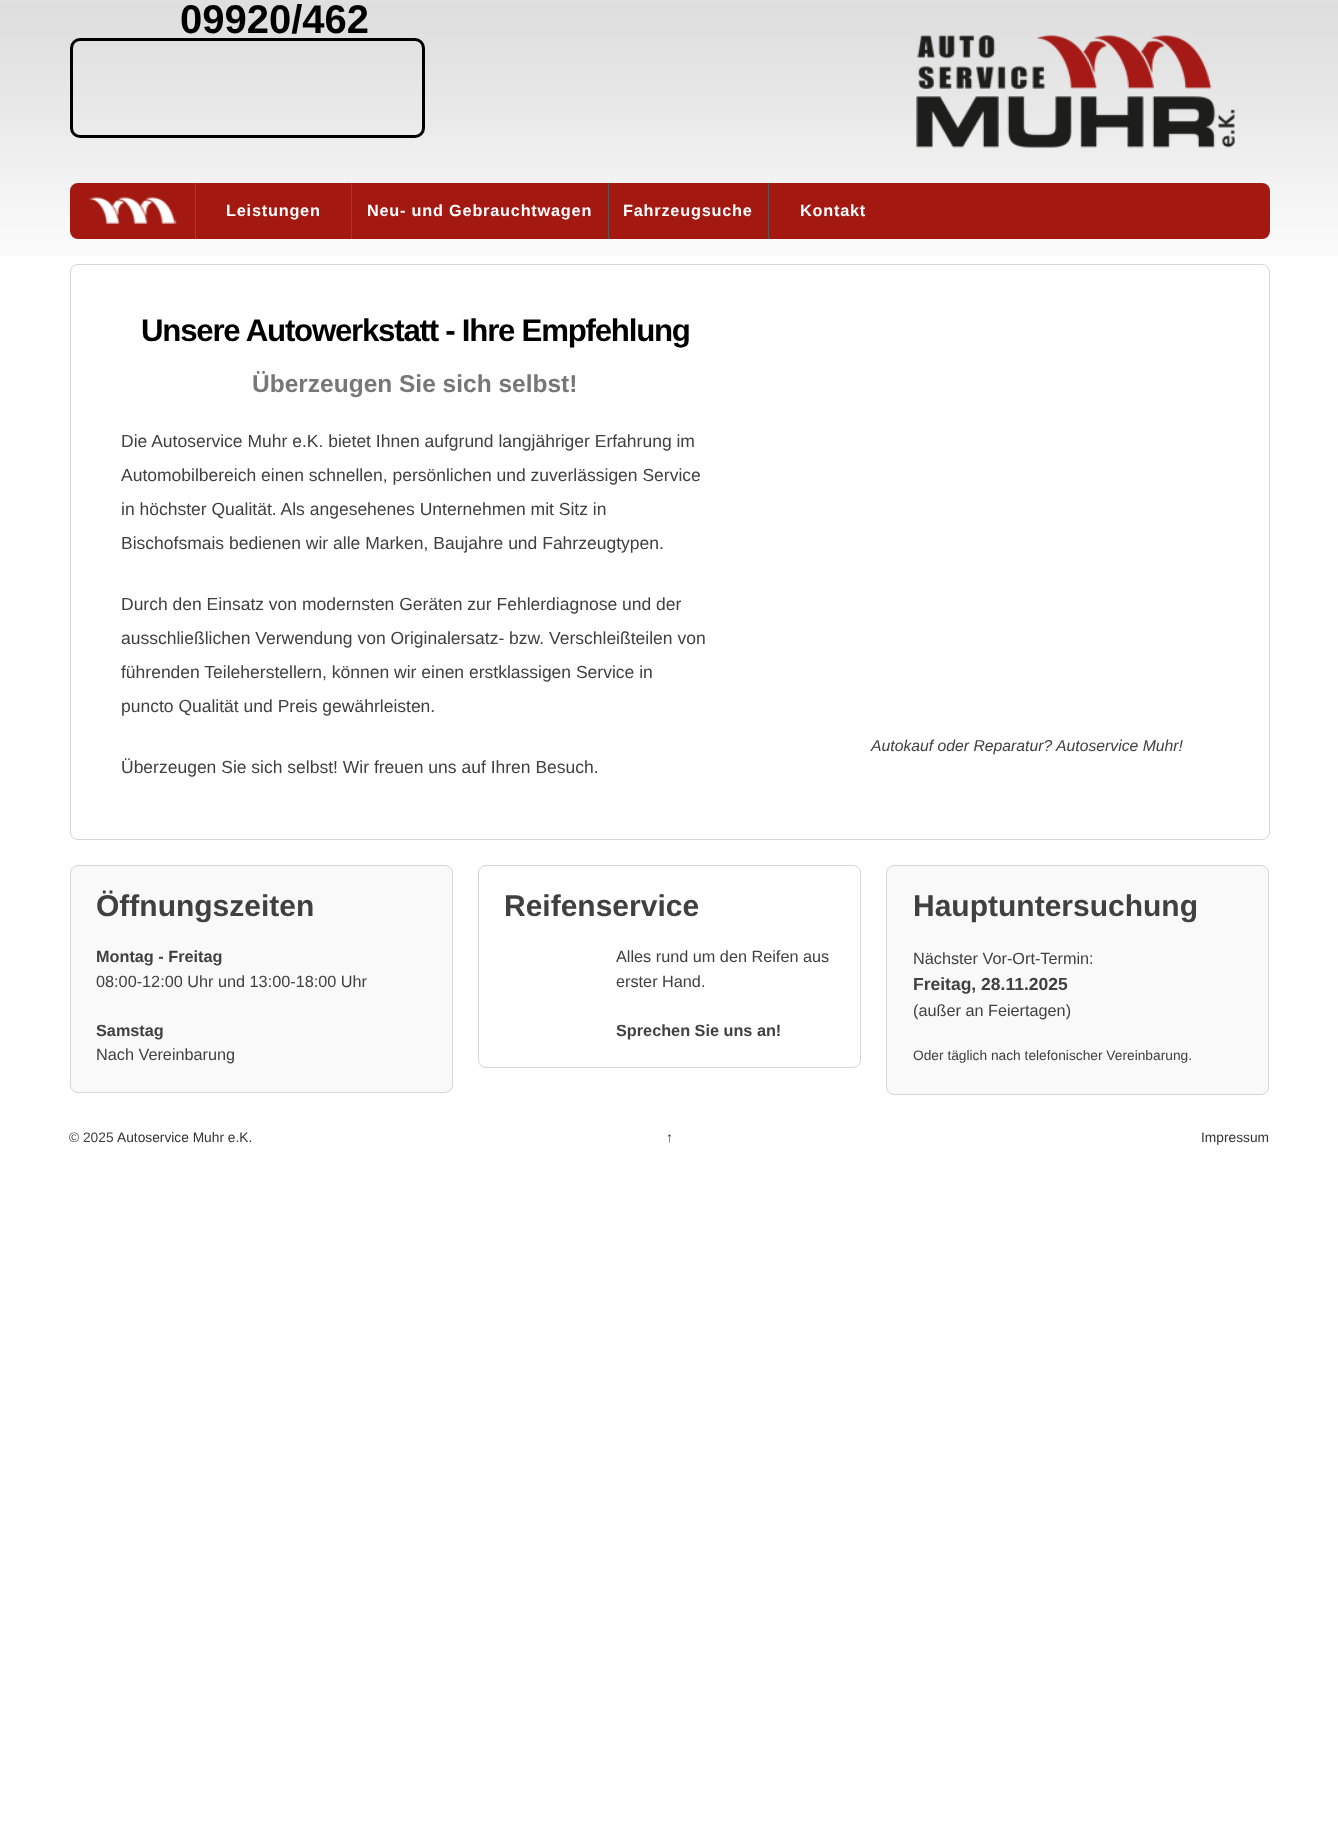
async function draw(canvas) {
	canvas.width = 1338;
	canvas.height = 1843;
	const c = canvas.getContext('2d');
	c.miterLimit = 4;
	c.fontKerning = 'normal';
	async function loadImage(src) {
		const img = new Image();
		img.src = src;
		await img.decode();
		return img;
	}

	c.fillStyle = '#fff';
	c.fillRect(0, 0, 1338, 1843);
	c.drawImage(await loadImage('img1.png'), 0, 0, 1338, 256);
	c.beginPath();
	c.roundRect(71.5, 39.5, 352, 97, 8.5);
	c.strokeStyle = '#000';
	c.lineWidth = 3;
	c.stroke();
	c.font = 'bold 40px Liberation Sans';
	c.fillStyle = '#000';
	c.fillText('09920/462', 180, 33);
	c.drawImage(await loadImage('img2.png'), 916, 35, 319, 113);
	c.fillStyle = '#a31810';
	c.beginPath();
	c.roundRect(70, 183, 1200, 56, 8);
	c.fill();
	c.drawImage(await loadImage('img3.png'), 88, 197, 89, 27);
	c.fillStyle = '#585858';
	c.fillRect(195, 183, 1, 56);
	c.letterSpacing = '0.8px';
	c.font = 'bold 16.25px Liberation Sans';
	c.fillStyle = '#fff';
	c.fillText('Leistungen', 226, 216);
	c.fillStyle = '#585858';
	c.fillRect(351, 183, 1, 56);
	c.fillStyle = '#fff';
	c.fillText('Neu- und Gebrauchtwagen', 367, 216);
	c.fillStyle = '#585858';
	c.fillRect(608, 183, 1, 56);
	c.fillStyle = '#fff';
	c.fillText('Fahrzeugsuche', 623, 216);
	c.fillStyle = '#585858';
	c.fillRect(768, 183, 1, 56);
	c.fillStyle = '#fff';
	c.fillText('Kontakt', 800, 216);
	c.beginPath();
	c.roundRect(70.5, 264.5, 1199, 575, 7.5);
	c.strokeStyle = '#d6d6d6';
	c.lineWidth = 1;
	c.stroke();
	c.letterSpacing = '-1.25px';
	c.font = 'bold 31.25px Liberation Sans';
	c.fillStyle = '#000';
	c.fillText('Unsere Autowerkstatt - Ihre Empfehlung', 141, 341);
	c.letterSpacing = '0px';
	c.font = 'bold 24.5px Liberation Sans';
	c.fillStyle = '#777';
	c.fillText('Überzeugen Sie sich selbst!', 252, 392);
	c.font = '17.5px Liberation Sans';
	c.fillStyle = '#404040';
	for (const [text, x, y] of [
		['Die Autoservice Muhr e.K. bietet Ihnen aufgrund langjähriger Erfahrung im', 121, 447],
		['Automobilbereich einen schnellen, persönlichen und zuverlässigen Service', 121, 481],
		['in höchster Qualität. Als angesehenes Unternehmen mit Sitz in', 121, 515],
		['Bischofsmais bedienen wir alle Marken, Baujahre und Fahrzeugtypen.', 121, 549],
		['Durch den Einsatz von modernsten Geräten zur Fehlerdiagnose und der', 121, 610],
		['ausschließlichen Verwendung von Originalersatz- bzw. Verschleißteilen von', 121, 644],
		['führenden Teileherstellern, können wir einen erstklassigen Service in', 121, 678],
		['puncto Qualität und Preis gewährleisten.', 121, 712],
		['Überzeugen Sie sich selbst! Wir freuen uns auf Ihren Besuch.', 121, 773],
	]) {
		c.fillText(text, x, y);
	}
	c.font = 'italic 15.75px Liberation Sans';
	c.fillText('Autokauf oder Reparatur? Autoservice Muhr!', 871, 751);
	c.fillStyle = '#f9f9f9';
	c.beginPath();
	c.roundRect(70.5, 865.5, 382, 227, 7.5);
	c.fill();
	c.stroke();
	c.font = 'bold 30px Liberation Sans';
	c.fillStyle = '#404040';
	c.fillText('Öffnungszeiten', 96, 916);
	c.font = 'bold 16.25px Liberation Sans';
	c.fillText('Montag - Freitag', 96, 962);
	c.font = '16.25px Liberation Sans';
	c.fillText('08:00-12:00 Uhr und 13:00-18:00 Uhr', 96, 987);
	c.font = 'bold 16.25px Liberation Sans';
	c.fillText('Samstag', 96, 1036);
	c.font = '16.25px Liberation Sans';
	c.fillText('Nach Vereinbarung', 96, 1060);
	c.beginPath();
	c.roundRect(478.5, 865.5, 382, 202, 7.5);
	c.stroke();
	c.font = 'bold 30px Liberation Sans';
	c.fillText('Reifenservice', 504, 916);
	c.font = '16.25px Liberation Sans';
	c.fillText('Alles rund um den Reifen aus', 616, 962);
	c.fillText('erster Hand.', 616, 987);
	c.font = 'bold 16.25px Liberation Sans';
	c.fillText('Sprechen Sie uns an!', 616, 1036);
	c.fillStyle = '#f9f9f9';
	c.beginPath();
	c.roundRect(886.5, 865.5, 382, 229, 7.5);
	c.fill();
	c.stroke();
	c.font = 'bold 30px Liberation Sans';
	c.fillStyle = '#404040';
	c.fillText('Hauptuntersuchung', 913, 916);
	c.font = '16.25px Liberation Sans';
	c.fillText('Nächster Vor-Ort-Termin:', 913, 964);
	c.font = 'bold 17.5px Liberation Sans';
	c.fillText('Freitag, 28.11.2025', 913, 990);
	c.font = '16.25px Liberation Sans';
	c.fillText('(außer an Feiertagen)', 913, 1016);
	c.font = '13.75px Liberation Sans';
	c.fillText('Oder täglich nach telefonischer Vereinbarung.', 913, 1060);
	c.fillText('© 2025', 69, 1142);
	c.fillStyle = '#333';
	for (const [text, x, y] of [
		['Autoservice Muhr e.K.', 117, 1142],
		['↑', 666, 1142],
		['Impressum', 1201, 1142],
	]) {
		c.fillText(text, x, y);
	}
}

draw(document.querySelector('canvas'));
